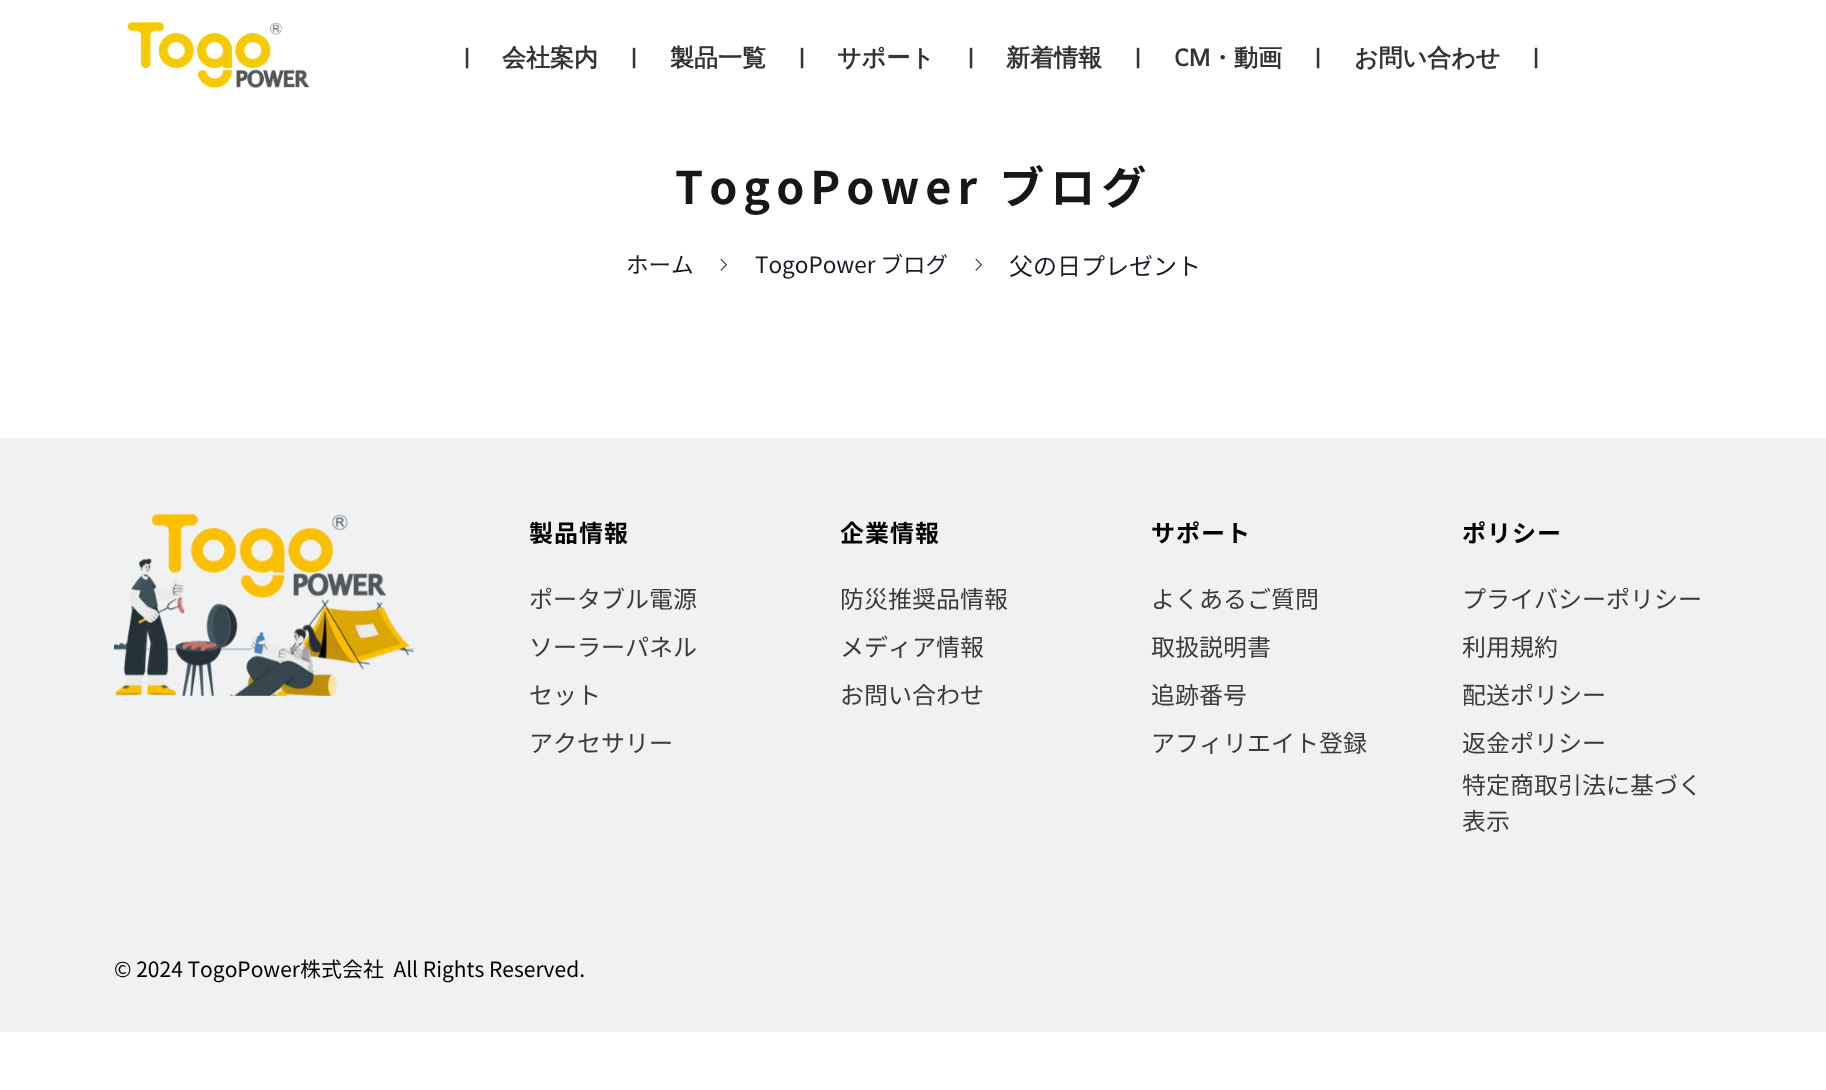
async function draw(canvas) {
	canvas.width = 1826;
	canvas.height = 1090;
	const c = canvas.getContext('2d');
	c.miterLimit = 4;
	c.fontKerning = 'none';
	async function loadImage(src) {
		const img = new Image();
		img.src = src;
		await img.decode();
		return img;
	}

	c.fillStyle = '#fff';
	c.fillRect(0, 0, 1826, 1090);
	c.drawImage(await loadImage('img1.png'), 127, 22, 183, 66);
	c.font = 'bold 24px AR One Sans';
	c.fillStyle = '#333';
	c.fillText('|', 461, 66);
	c.font = 'bold 24px WenQuanYi Zen Hei';
	c.fillText('会社案内', 502, 66);
	c.font = 'bold 24px AR One Sans';
	c.fillText('|', 628, 66);
	c.font = 'bold 24px WenQuanYi Zen Hei';
	c.fillText('製品一覧', 670, 66);
	c.font = 'bold 24px AR One Sans';
	c.fillText('|', 796, 66);
	c.font = 'bold 24px WenQuanYi Zen Hei';
	c.fillText('サポート', 837, 66);
	c.font = 'bold 24px AR One Sans';
	c.fillText('|', 965, 66);
	c.font = 'bold 24px WenQuanYi Zen Hei';
	c.fillText('新着情報', 1006, 66);
	c.font = 'bold 24px AR One Sans';
	c.fillText('|', 1132, 66);
	c.fillText('CM', 1174, 66);
	c.font = 'bold 24px WenQuanYi Zen Hei';
	c.fillText('・動画', 1210, 66);
	c.font = 'bold 24px AR One Sans';
	c.fillText('|', 1312, 66);
	c.font = 'bold 24px WenQuanYi Zen Hei';
	c.fillText('お問い合わせ', 1354, 66);
	c.font = 'bold 24px AR One Sans';
	c.fillText('|', 1530, 66);
	c.letterSpacing = '6px';
	c.font = 'bold 45px Noto Sans JP';
	c.fillStyle = '#171717';
	c.fillText('TogoPower ブログ', 675, 204);
	c.letterSpacing = '0px';
	c.font = '22.5px Noto Sans JP';
	c.fillStyle = '#161d25';
	c.fillText('ホーム', 626, 273);
	c.drawImage(await loadImage('img2.png'), 720, 258, 7, 13);
	c.fillText('TogoPower ブログ', 755, 273);
	c.drawImage(await loadImage('img2.png'), 975, 258, 7, 13);
	c.font = '24px Noto Sans JP';
	c.fillText('父の日プレゼント', 1009, 275);
	c.fillStyle = '#eff1f3';
	c.fillRect(0, 438, 1826, 594);
	c.drawImage(await loadImage('img3.png'), 114, 513, 300, 183);
	c.letterSpacing = '1px';
	c.font = 'bold 24px Noto Sans JP';
	c.fillStyle = '#000';
	c.fillText('製品情報', 529, 542);
	c.letterSpacing = '0px';
	c.font = '24px Noto Sans JP';
	c.fillStyle = '#3a3a3a';
	for (const [text, x, y] of [
		['ポータブル電源', 529, 608],
		['ソーラーパネル', 529, 656],
		['セット', 529, 704],
		['アクセサリー', 529, 752],
	]) {
		c.fillText(text, x, y);
	}
	c.letterSpacing = '1px';
	c.font = 'bold 24px Noto Sans JP';
	c.fillStyle = '#000';
	c.fillText('企業情報', 840, 542);
	c.letterSpacing = '0px';
	c.font = '24px Noto Sans JP';
	c.fillStyle = '#3a3a3a';
	for (const [text, x, y] of [
		['防災推奨品情報', 840, 608],
		['メディア情報', 840, 656],
		['お問い合わせ', 840, 704],
	]) {
		c.fillText(text, x, y);
	}
	c.letterSpacing = '1px';
	c.font = 'bold 24px Noto Sans JP';
	c.fillStyle = '#000';
	c.fillText('サポート', 1151, 542);
	c.letterSpacing = '0px';
	c.font = '24px Noto Sans JP';
	c.fillStyle = '#3a3a3a';
	for (const [text, x, y] of [
		['よくあるご質問', 1151, 608],
		['取扱説明書', 1151, 656],
		['追跡番号', 1151, 704],
		['アフィリエイト登録', 1151, 752],
	]) {
		c.fillText(text, x, y);
	}
	c.letterSpacing = '1px';
	c.font = 'bold 24px Noto Sans JP';
	c.fillStyle = '#000';
	c.fillText('ポリシー', 1462, 542);
	c.letterSpacing = '0px';
	c.font = '24px Noto Sans JP';
	c.fillStyle = '#3a3a3a';
	for (const [text, x, y] of [
		['プライバシーポリシー', 1462, 608],
		['利用規約', 1462, 656],
		['配送ポリシー', 1462, 704],
		['返金ポリシー', 1462, 752],
		['特定商取引法に基づく', 1462, 794],
		['表示', 1462, 830],
	]) {
		c.fillText(text, x, y);
	}
	c.font = '21px Noto Sans JP';
	c.fillStyle = '#000';
	c.fillText('© 2024 TogoPower株式会社  All Rights Reserved.', 114, 977);
}

draw(document.querySelector('canvas'));
